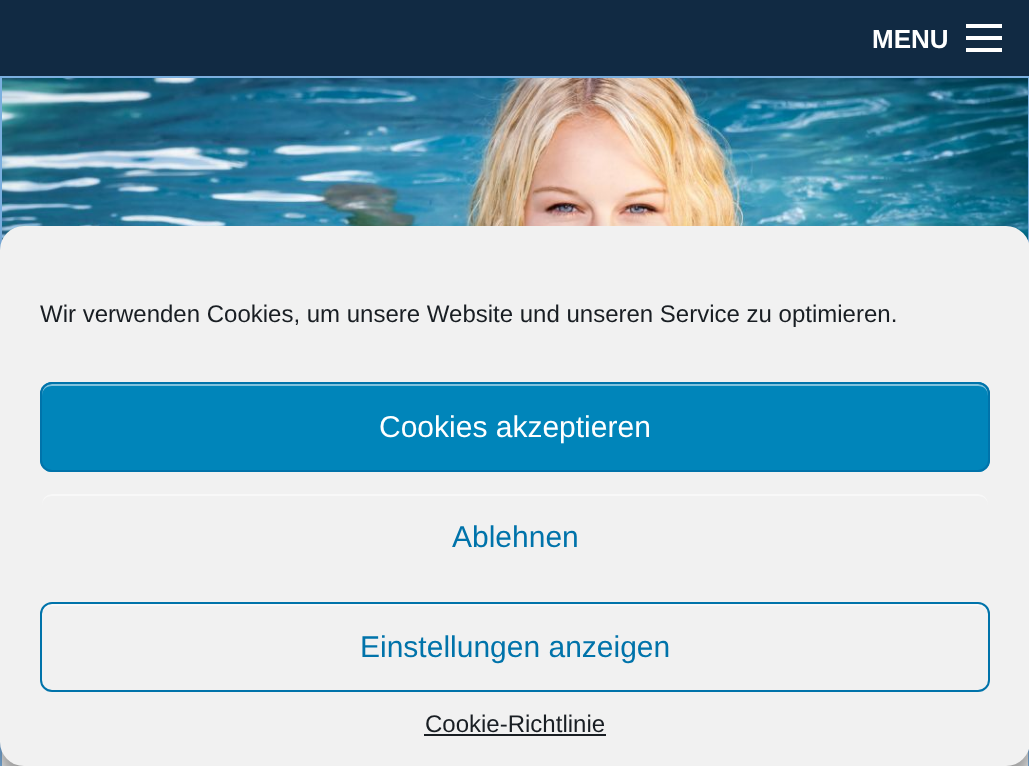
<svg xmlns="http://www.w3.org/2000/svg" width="1029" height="766">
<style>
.a{font:bold 26px Liberation Sans;fill:#fff}
.b{font:24px Liberation Sans;fill:#191e23}
.c{font:30px Liberation Sans;fill:#fff}
.d{font:30px Liberation Sans;fill:#0073aa}
</style>
<rect width="100%" height="100%" fill="#112a43"/>
<path fill="#fff" d="M966 48h36v4H966z"/>
<path fill="#fff" d="M966 36h36v4H966z"/>
<path fill="#fff" d="M966 24h36v4H966z"/>
<path fill="#eee" d="M2 751h1026v15H2z"/>
<path fill="none" stroke="#7bafdf" stroke-width="2" d="M1 77h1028v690H1z"/>
<image href="1.png" x="2" y="78" width="1026" height="163"/>
<rect fill="#0000003b" filter="blur(6px)" y="238" width="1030" height="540" rx="24"/>
<rect fill="#00000030" filter="blur(20px)" y="246" width="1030" height="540" rx="24"/>
<rect fill="#f1f1f1" y="226" width="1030" height="540" rx="24"/>
<rect fill="#0085ba" x="40" y="382" width="950" height="90" rx="12"/>
<path fill="#80c2dd" d="M52 386h926c6 0 10 4 10 10v-2c0-6-4-10-10-10h-926c-6 0-10 4-10 10v2c0-6 4-10 10-10z"/>
<rect fill="none" stroke="#0073aa" stroke-width="2" x="41" y="383" width="948" height="88" rx="11"/>
<path fill="#f8f8f8" d="M52 496h926c6 0 10 4 10 10v-2c0-6-4-10-10-10h-926c-6 0-10 4-10 10v2c0-6 4-10 10-10z"/>
<rect fill="none" stroke="#f1f1f1" stroke-width="2" x="41" y="493" width="948" height="88" rx="11"/>
<path fill="#f8f8f8" d="M52 606h926c6 0 10 4 10 10v-2c0-6-4-10-10-10h-926c-6 0-10 4-10 10v2c0-6 4-10 10-10z"/>
<rect fill="none" stroke="#0073aa" stroke-width="2" x="41" y="603" width="948" height="88" rx="11"/>
<path fill="#191e23" d="M424 734h182v2H424z"/>
<text class="a" x="872" y="48">MENU</text>
<text class="b" x="40" y="322">Wir verwenden Cookies, um unsere Website und unseren Service zu optimieren.</text>
<text class="c" x="379" y="437">Cookies akzeptieren</text>
<text class="d" x="452" y="547">Ablehnen</text>
<text class="d" x="360" y="657">Einstellungen anzeigen</text>
<text class="b" x="425" y="732">Cookie-Richtlinie</text>
</svg>
